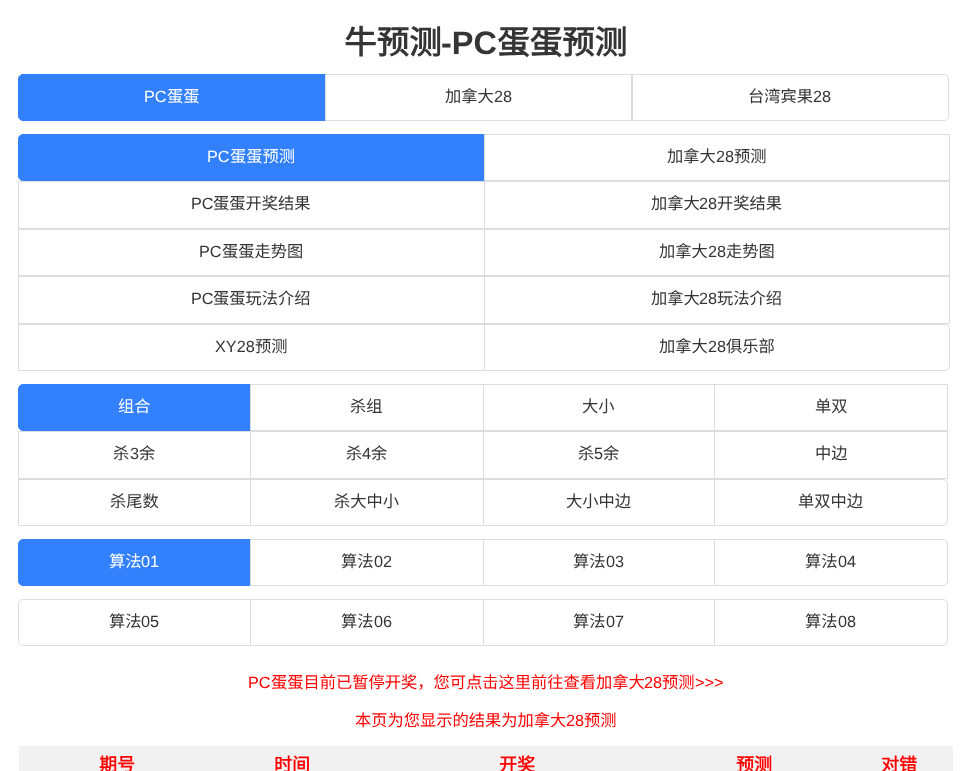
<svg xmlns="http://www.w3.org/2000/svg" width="971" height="771">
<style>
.a{font:bold 32.5px Noto Sans CJK SC;fill:#353535}
.b{font:bold 32.5px Liberation Sans;fill:#353535}
.c{font:16.25px Liberation Sans;fill:#fff}
.d{font:16.25px Noto Sans CJK SC;fill:#fff}
.e{font:16.25px Noto Sans CJK SC;fill:#353535}
.f{font:16.25px Liberation Sans;fill:#353535}
.g{font:16.25px Liberation Sans;fill:#f00}
.h{font:16.25px Noto Sans CJK SC;fill:#f00}
.i{font:bold 18px Noto Sans CJK SC;fill:#f00}
</style>
<rect width="100%" height="100%" fill="#fff"/>
<path fill="#3280fc" stroke="#3280fc" d="M23 74.5h302.5v46h-302.5c-2.5 0-4.5-2-4.5-4.5v-37c0-2.5 2-4.5 4.5-4.5z"/>
<path fill="none" stroke="#ddd" d="M325.5 74.5h307v46H325.5z"/>
<path fill="none" stroke="#ddd" d="M631.5 74.5h312.5c2.5 0 4.5 2 4.5 4.5v37c0 2.5-2 4.5-4.5 4.5h-312.5z"/>
<path fill="#3280fc" stroke="#3280fc" d="M23 134.5h461.5v46h-461.5c-2.5 0-4.5-2-4.5-4.5v-37c0-2.5 2-4.5 4.5-4.5z"/>
<path fill="none" stroke="#ddd" d="M484.5 134.5h465v46H484.5z"/>
<path fill="none" stroke="#ddd" d="M18.5 181.5h466v47H18.5z"/>
<path fill="none" stroke="#ddd" d="M484.5 181.5h465v47H484.5z"/>
<path fill="none" stroke="#ddd" d="M18.5 229.5h466v46H18.5z"/>
<path fill="none" stroke="#ddd" d="M484.5 229.5h465v46H484.5z"/>
<path fill="none" stroke="#ddd" d="M18.5 276.5h466v47H18.5z"/>
<path fill="none" stroke="#ddd" d="M484.5 276.5h465v47H484.5z"/>
<path fill="none" stroke="#ddd" d="M18.5 324.5h466v46H18.5z"/>
<path fill="none" stroke="#ddd" d="M484.5 324.5h460.5c2.5 0 4.5 2 4.5 4.5v37c0 2.5-2 4.5-4.5 4.5h-460.5z"/>
<path fill="#3280fc" stroke="#3280fc" d="M23 384.5h227.5v46h-227.5c-2.5 0-4.5-2-4.5-4.5v-37c0-2.5 2-4.5 4.5-4.5z"/>
<path fill="none" stroke="#ddd" d="M250.5 384.5h233v46H250.5z"/>
<path fill="none" stroke="#ddd" d="M483.5 384.5h231v46H483.5z"/>
<path fill="none" stroke="#ddd" d="M714.5 384.5h233v46H714.5z"/>
<path fill="none" stroke="#ddd" d="M18.5 431.5h232v47H18.5z"/>
<path fill="none" stroke="#ddd" d="M250.5 431.5h233v47H250.5z"/>
<path fill="none" stroke="#ddd" d="M483.5 431.5h231v47H483.5z"/>
<path fill="none" stroke="#ddd" d="M714.5 431.5h233v47H714.5z"/>
<path fill="none" stroke="#ddd" d="M18.5 479.5h232v46H18.5z"/>
<path fill="none" stroke="#ddd" d="M250.5 479.5h233v46H250.5z"/>
<path fill="none" stroke="#ddd" d="M483.5 479.5h231v46H483.5z"/>
<path fill="none" stroke="#ddd" d="M714.5 479.5h228.5c2.5 0 4.5 2 4.5 4.5v37c0 2.5-2 4.5-4.5 4.5h-228.5z"/>
<path fill="#3280fc" stroke="#3280fc" d="M23 539.5h227.5v46h-227.5c-2.5 0-4.5-2-4.5-4.5v-37c0-2.5 2-4.5 4.5-4.5z"/>
<path fill="none" stroke="#ddd" d="M250.5 539.5h233v46H250.5z"/>
<path fill="none" stroke="#ddd" d="M483.5 539.5h231v46H483.5z"/>
<path fill="none" stroke="#ddd" d="M714.5 539.5h228.5c2.5 0 4.5 2 4.5 4.5v37c0 2.5-2 4.5-4.5 4.5h-228.5z"/>
<path fill="none" stroke="#ddd" d="M23 599.5h227.5v46h-227.5c-2.5 0-4.5-2-4.5-4.5v-37c0-2.5 2-4.5 4.5-4.5z"/>
<path fill="none" stroke="#ddd" d="M250.5 599.5h233v46H250.5z"/>
<path fill="none" stroke="#ddd" d="M483.5 599.5h231v46H483.5z"/>
<path fill="none" stroke="#ddd" d="M714.5 599.5h228.5c2.5 0 4.5 2 4.5 4.5v37c0 2.5-2 4.5-4.5 4.5h-228.5z"/>
<path fill="#f1f1f1" d="M19 746h934v25H19z"/>
<text class="a" x="344" y="54">牛预测</text>
<text class="b" x="441" y="54">-PC</text>
<text class="a" x="497" y="54">蛋蛋预测</text>
<text class="c" x="144" y="102">PC</text>
<text class="d" x="167" y="102">蛋蛋</text>
<text class="e" x="445" y="102">加拿大</text>
<text class="f" x="494" y="102">28</text>
<text class="e" x="748" y="102">台湾宾果</text>
<text class="f" x="813" y="102">28</text>
<text class="c" x="207" y="162">PC</text>
<text class="d" x="230" y="162">蛋蛋预测</text>
<text class="e" x="667" y="162">加拿大</text>
<text class="f" x="716" y="162">28</text>
<text class="e" x="734" y="162">预测</text>
<text class="f" x="191" y="209">PC</text>
<text class="e" x="213" y="209">蛋蛋开奖结果</text>
<text class="e" x="651" y="209">加拿大</text>
<text class="f" x="699" y="209">28</text>
<text class="e" x="717" y="209">开奖结果</text>
<text class="f" x="199" y="257">PC</text>
<text class="e" x="222" y="257">蛋蛋走势图</text>
<text class="e" x="659" y="257">加拿大</text>
<text class="f" x="708" y="257">28</text>
<text class="e" x="726" y="257">走势图</text>
<text class="f" x="191" y="304">PC</text>
<text class="e" x="213" y="304">蛋蛋玩法介绍</text>
<text class="e" x="651" y="304">加拿大</text>
<text class="f" x="699" y="304">28</text>
<text class="e" x="717" y="304">玩法介绍</text>
<text class="f" x="215" y="352">XY28</text>
<text class="e" x="255" y="352">预测</text>
<text class="e" x="659" y="352">加拿大</text>
<text class="f" x="708" y="352">28</text>
<text class="e" x="726" y="352">俱乐部</text>
<text class="d" x="118" y="412">组合</text>
<text class="e" x="350" y="412">杀组</text>
<text class="e" x="582" y="412">大小</text>
<text class="e" x="815" y="412">单双</text>
<text class="e" x="113" y="459">杀</text>
<text class="f" x="130" y="459">3</text>
<text class="e" x="139" y="459">余</text>
<text class="e" x="346" y="459">杀</text>
<text class="f" x="362" y="459">4</text>
<text class="e" x="371" y="459">余</text>
<text class="e" x="578" y="459">杀</text>
<text class="f" x="594" y="459">5</text>
<text class="e" x="603" y="459">余</text>
<text class="e" x="815" y="459">中边</text>
<text class="e" x="110" y="507">杀尾数</text>
<text class="e" x="334" y="507">杀大中小</text>
<text class="e" x="566" y="507">大小中边</text>
<text class="e" x="798" y="507">单双中边</text>
<text class="d" x="109" y="567">算法</text>
<text class="c" x="141" y="567">01</text>
<text class="e" x="341" y="567">算法</text>
<text class="f" x="374" y="567">02</text>
<text class="e" x="573" y="567">算法</text>
<text class="f" x="606" y="567">03</text>
<text class="e" x="805" y="567">算法</text>
<text class="f" x="838" y="567">04</text>
<text class="e" x="109" y="627">算法</text>
<text class="f" x="141" y="627">05</text>
<text class="e" x="341" y="627">算法</text>
<text class="f" x="374" y="627">06</text>
<text class="e" x="573" y="627">算法</text>
<text class="f" x="606" y="627">07</text>
<text class="e" x="805" y="627">算法</text>
<text class="f" x="838" y="627">08</text>
<text class="g" x="248" y="688">PC</text>
<text class="h" x="271" y="688">蛋蛋目前已暂停开奖，您可点击这里前往查看加拿大</text>
<text class="g" x="644" y="688">28</text>
<text class="h" x="662" y="688">预测</text>
<text class="g" x="695" y="688">&gt;&gt;&gt;</text>
<text class="h" x="355" y="726">本页为您显示的结果为加拿大</text>
<text class="g" x="566" y="726">28</text>
<text class="h" x="584" y="726">预测</text>
<text class="i" x="99" y="771">期号</text>
<text class="i" x="274" y="771">时间</text>
<text class="i" x="499" y="771">开奖</text>
<text class="i" x="736" y="771">预测</text>
<text class="i" x="881" y="771">对错</text>
</svg>
